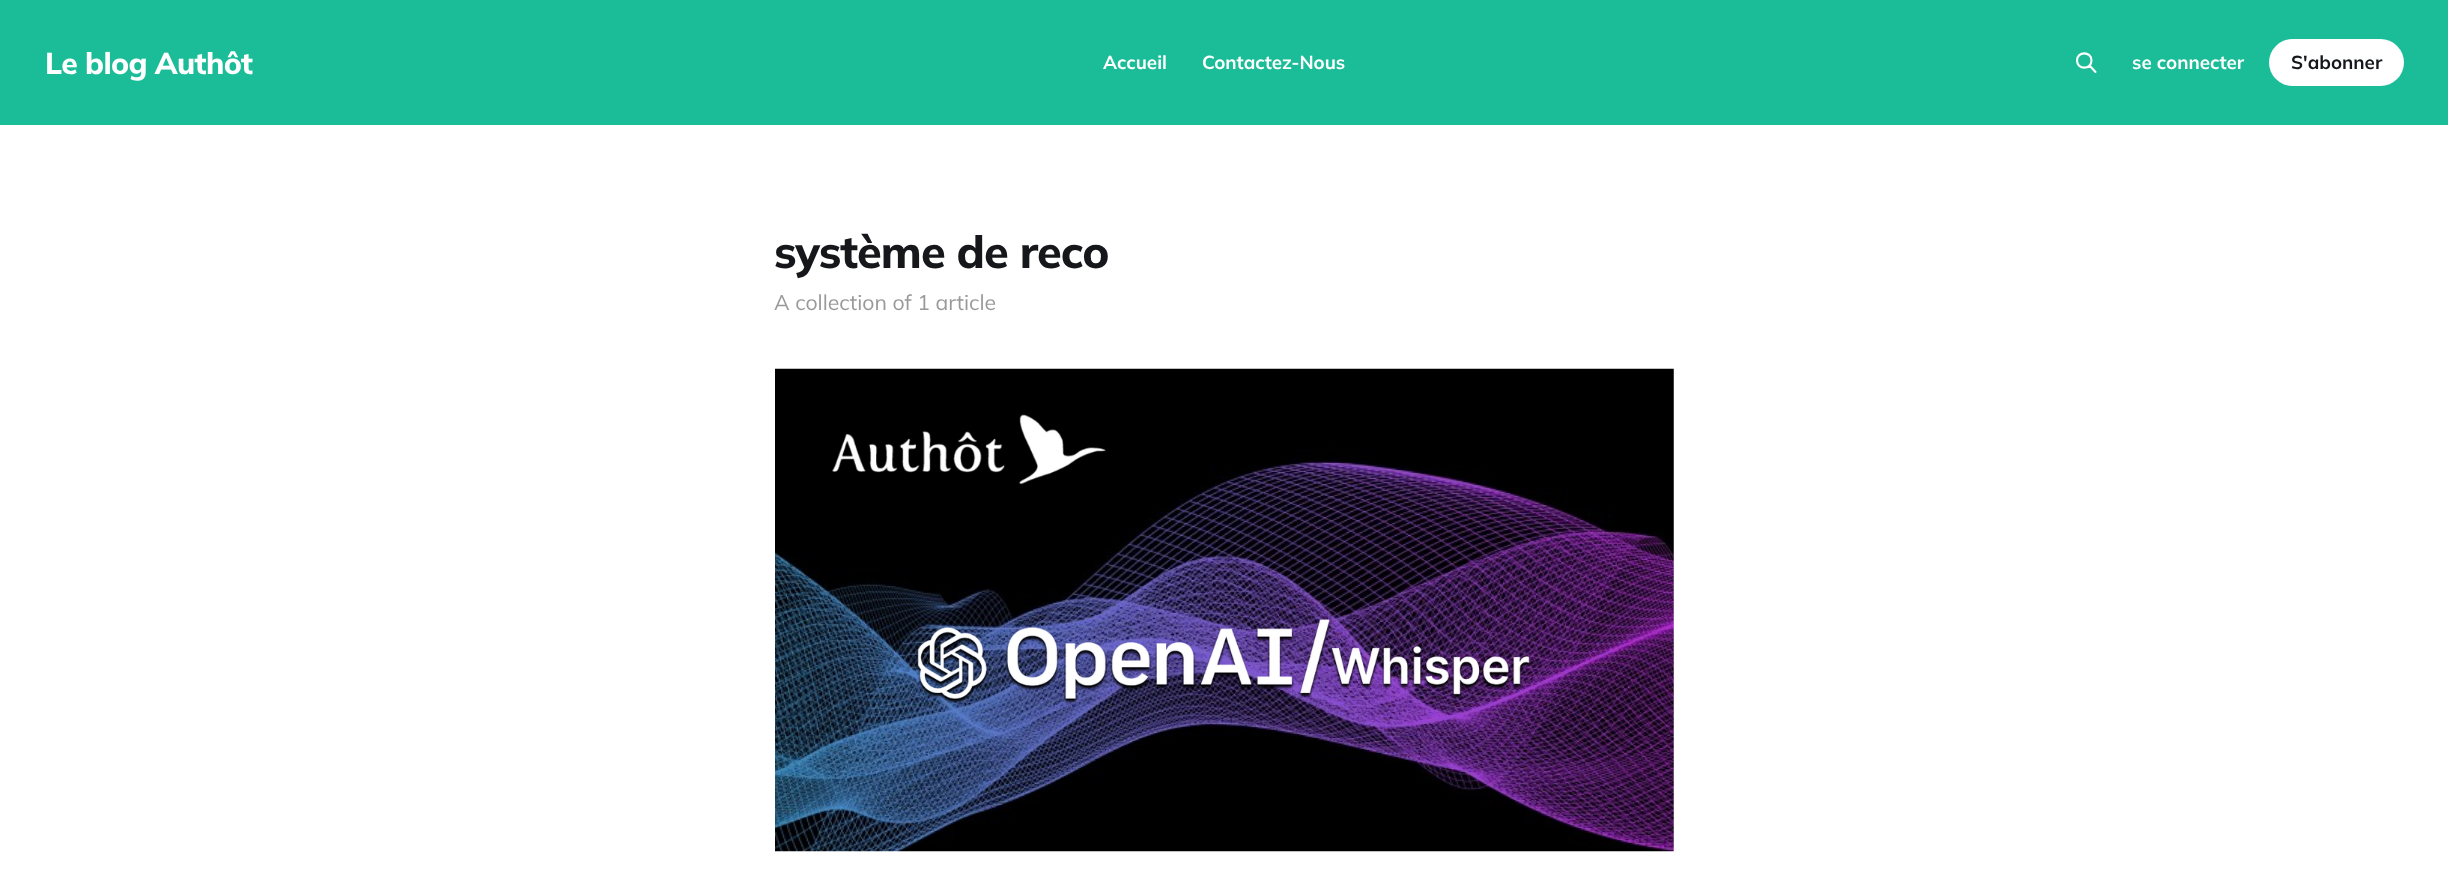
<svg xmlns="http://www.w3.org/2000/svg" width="2448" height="883">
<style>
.a{font:200 30px 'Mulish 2';letter-spacing:-0.6px;fill:#fff}
.b{font:200 18.75px Mulish;fill:#fff}
.c{font:200 18.75px Mulish;fill:#15171a}
.d{font:200 45px 'Mulish 2';letter-spacing:-0.9px;fill:#15171a}
.e{font:200 21.25px 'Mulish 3';fill:#999}
</style>
<rect width="100%" height="100%" fill="#fff"/>
<path fill="#1bbc98" d="M0 0h2448v125H0z"/>
<path fill="none" stroke="#fff" stroke-width="2.1" stroke-linecap="round" stroke-linejoin="round" d="M2095.5 72l-6-6.5m2-5c0 9.5-14.5 9.5-14.5 0c0-9.5 14.5-9.5 14.5 0z"/>
<rect fill="#fff" x="2269" y="39" width="135" height="47" rx="23.5"/>
<image href="1.png" x="775" y="368" width="899" height="484"/>
<text class="a" x="45" y="74">Le blog Authôt</text>
<text class="b" x="1103" y="69">Accueil</text>
<text class="b" x="1202" y="69">Contactez-Nous</text>
<text class="b" x="2132" y="69">se connecter</text>
<text class="c" x="2291" y="69">S'abonner</text>
<text class="d" x="774" y="268">système de reco</text>
<text class="e" x="774" y="310">A collection of 1 article</text>
</svg>
